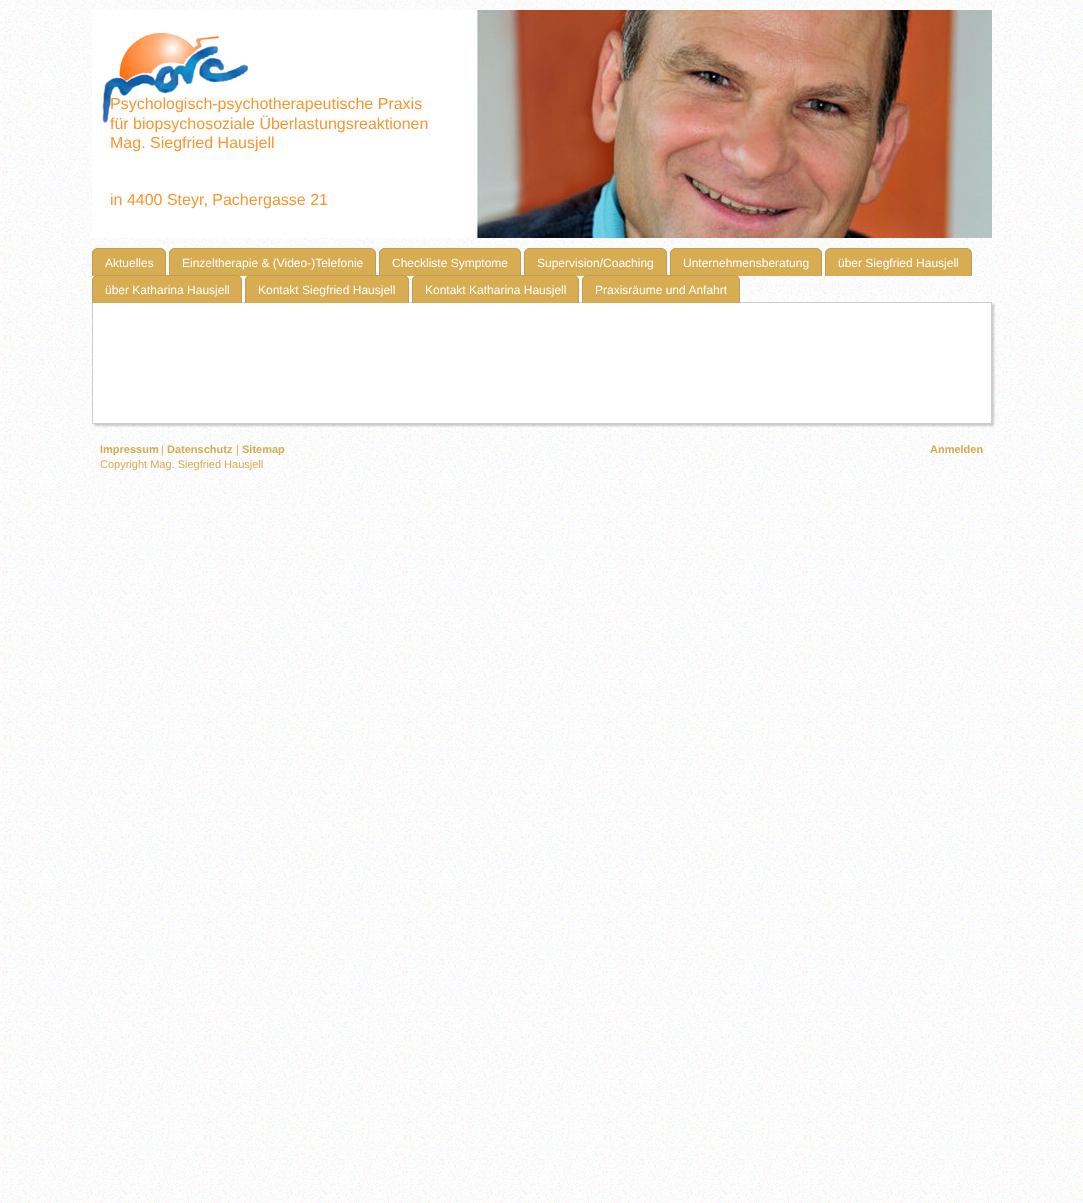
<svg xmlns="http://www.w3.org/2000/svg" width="1083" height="1203">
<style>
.a{font:16px Liberation Sans;fill:#f79730}
.b{font:12px Liberation Sans;fill:#fff}
.c{font:bold 11px Liberation Sans;fill:#d7ac52}
.d{font:11px Liberation Sans;fill:#d7ac52}
</style>
<rect width="100%" height="100%" fill="#fff"/>
<image href="1.png" x="0" y="0" width="1083" height="1203"/>
<image href="2.png" x="92" y="10" width="900" height="228"/>
<image href="3.png" x="101" y="33" width="150" height="92"/>
<path fill="#d7ac52" d="M98 248h62c3.5 0 6 2.5 6 6v22h-74v-22c0-3.5 2.5-6 6-6z"/>
<path fill="#bd9e5b" fill-rule="evenodd" d="M98 248h62c3 0 6 3 6 6v22h-74v-22c0-3 3-6 6-6zm0 1h62c3 0 5 2 5 5v22h-72v-22c0-3 2-5 5-5z"/>
<path fill="#d7ac52" d="M175 248h195c3.5 0 6 2.5 6 6v22h-207v-22c0-3.5 2.5-6 6-6z"/>
<path fill="#bd9e5b" fill-rule="evenodd" d="M175 248h195c3 0 6 3 6 6v22h-207v-22c0-3 3-6 6-6zm0 1h195c3 0 5 2 5 5v22h-205v-22c0-3 2-5 5-5z"/>
<path fill="#d7ac52" d="M385 248h130c3.5 0 6 2.5 6 6v22h-142v-22c0-3.5 2.5-6 6-6z"/>
<path fill="#bd9e5b" fill-rule="evenodd" d="M385 248h130c3 0 6 3 6 6v22h-142v-22c0-3 3-6 6-6zm0 1h130c3 0 5 2 5 5v22h-140v-22c0-3 2-5 5-5z"/>
<path fill="#d7ac52" d="M530 248h131c3.5 0 6 2.5 6 6v22h-143v-22c0-3.5 2.5-6 6-6z"/>
<path fill="#bd9e5b" fill-rule="evenodd" d="M530 248h131c3 0 6 3 6 6v22h-143v-22c0-3 3-6 6-6zm0 1h131c3 0 5 2 5 5v22h-141v-22c0-3 2-5 5-5z"/>
<path fill="#d7ac52" d="M676 248h140c3.5 0 6 2.5 6 6v22h-152v-22c0-3.5 2.5-6 6-6z"/>
<path fill="#bd9e5b" fill-rule="evenodd" d="M676 248h140c3 0 6 3 6 6v22h-152v-22c0-3 3-6 6-6zm0 1h140c3 0 5 2 5 5v22h-150v-22c0-3 2-5 5-5z"/>
<path fill="#d7ac52" d="M831 248h135c3.5 0 6 2.5 6 6v22h-147v-22c0-3.5 2.5-6 6-6z"/>
<path fill="#bd9e5b" fill-rule="evenodd" d="M831 248h135c3 0 6 3 6 6v22h-147v-22c0-3 3-6 6-6zm0 1h135c3 0 5 2 5 5v22h-145v-22c0-3 2-5 5-5z"/>
<path fill="#00000033" filter="blur(1px)" d="M94 304h900v122H94z"/>
<path fill="#fff" stroke="#ccc" d="M92.5 302.5h899v121H92.5z"/>
<path fill="#d7ac52" d="M98 275h138c3.5 0 6 2.5 6 6v22h-150v-22c0-3.5 2.5-6 6-6z"/>
<path fill="#bd9e5b" fill-rule="evenodd" d="M98 275h138c3 0 6 3 6 6v22h-150v-22c0-3 3-6 6-6zm0 1h138c3 0 5 2 5 5v22h-148v-22c0-3 2-5 5-5z"/>
<path fill="#d7ac52" d="M251 275h152c3.5 0 6 2.5 6 6v22h-164v-22c0-3.5 2.5-6 6-6z"/>
<path fill="#bd9e5b" fill-rule="evenodd" d="M251 275h152c3 0 6 3 6 6v22h-164v-22c0-3 3-6 6-6zm0 1h152c3 0 5 2 5 5v22h-162v-22c0-3 2-5 5-5z"/>
<path fill="#d7ac52" d="M418 275h155c3.5 0 6 2.5 6 6v22h-167v-22c0-3.5 2.5-6 6-6z"/>
<path fill="#bd9e5b" fill-rule="evenodd" d="M418 275h155c3 0 6 3 6 6v22h-167v-22c0-3 3-6 6-6zm0 1h155c3 0 5 2 5 5v22h-165v-22c0-3 2-5 5-5z"/>
<path fill="#d7ac52" d="M588 275h146c3.5 0 6 2.5 6 6v22h-158v-22c0-3.5 2.5-6 6-6z"/>
<path fill="#bd9e5b" fill-rule="evenodd" d="M588 275h146c3 0 6 3 6 6v22h-158v-22c0-3 3-6 6-6zm0 1h146c3 0 5 2 5 5v22h-156v-22c0-3 2-5 5-5z"/>
<text class="a" x="110" y="109">Psychologisch-psychotherapeutische Praxis</text>
<text class="a" x="110" y="129">für biopsychosoziale Überlastungsreaktionen</text>
<text class="a" x="110" y="148">Mag. Siegfried Hausjell</text>
<text class="a" x="110" y="205">in 4400 Steyr, Pachergasse 21</text>
<text class="b" x="105" y="267">Aktuelles</text>
<text class="b" x="182" y="267">Einzeltherapie &amp; (Video-)Telefonie</text>
<text class="b" x="392" y="267">Checkliste Symptome</text>
<text class="b" x="537" y="267">Supervision/Coaching</text>
<text class="b" x="683" y="267">Unternehmensberatung</text>
<text class="b" x="838" y="267">über Siegfried Hausjell</text>
<text class="b" x="105" y="294">über Katharina Hausjell</text>
<text class="b" x="258" y="294">Kontakt Siegfried Hausjell</text>
<text class="b" x="425" y="294">Kontakt Katharina Hausjell</text>
<text class="b" x="595" y="294">Praxisräume und Anfahrt</text>
<text class="c" x="100" y="453">Impressum</text>
<text class="d" x="161" y="453">|</text>
<text class="c" x="167" y="453">Datenschutz</text>
<text class="d" x="236" y="453">|</text>
<text class="c" x="242" y="453">Sitemap</text>
<text class="d" x="100" y="468">Copyright Mag. Siegfried Hausjell</text>
<text class="c" x="930" y="453">Anmelden</text>
</svg>
